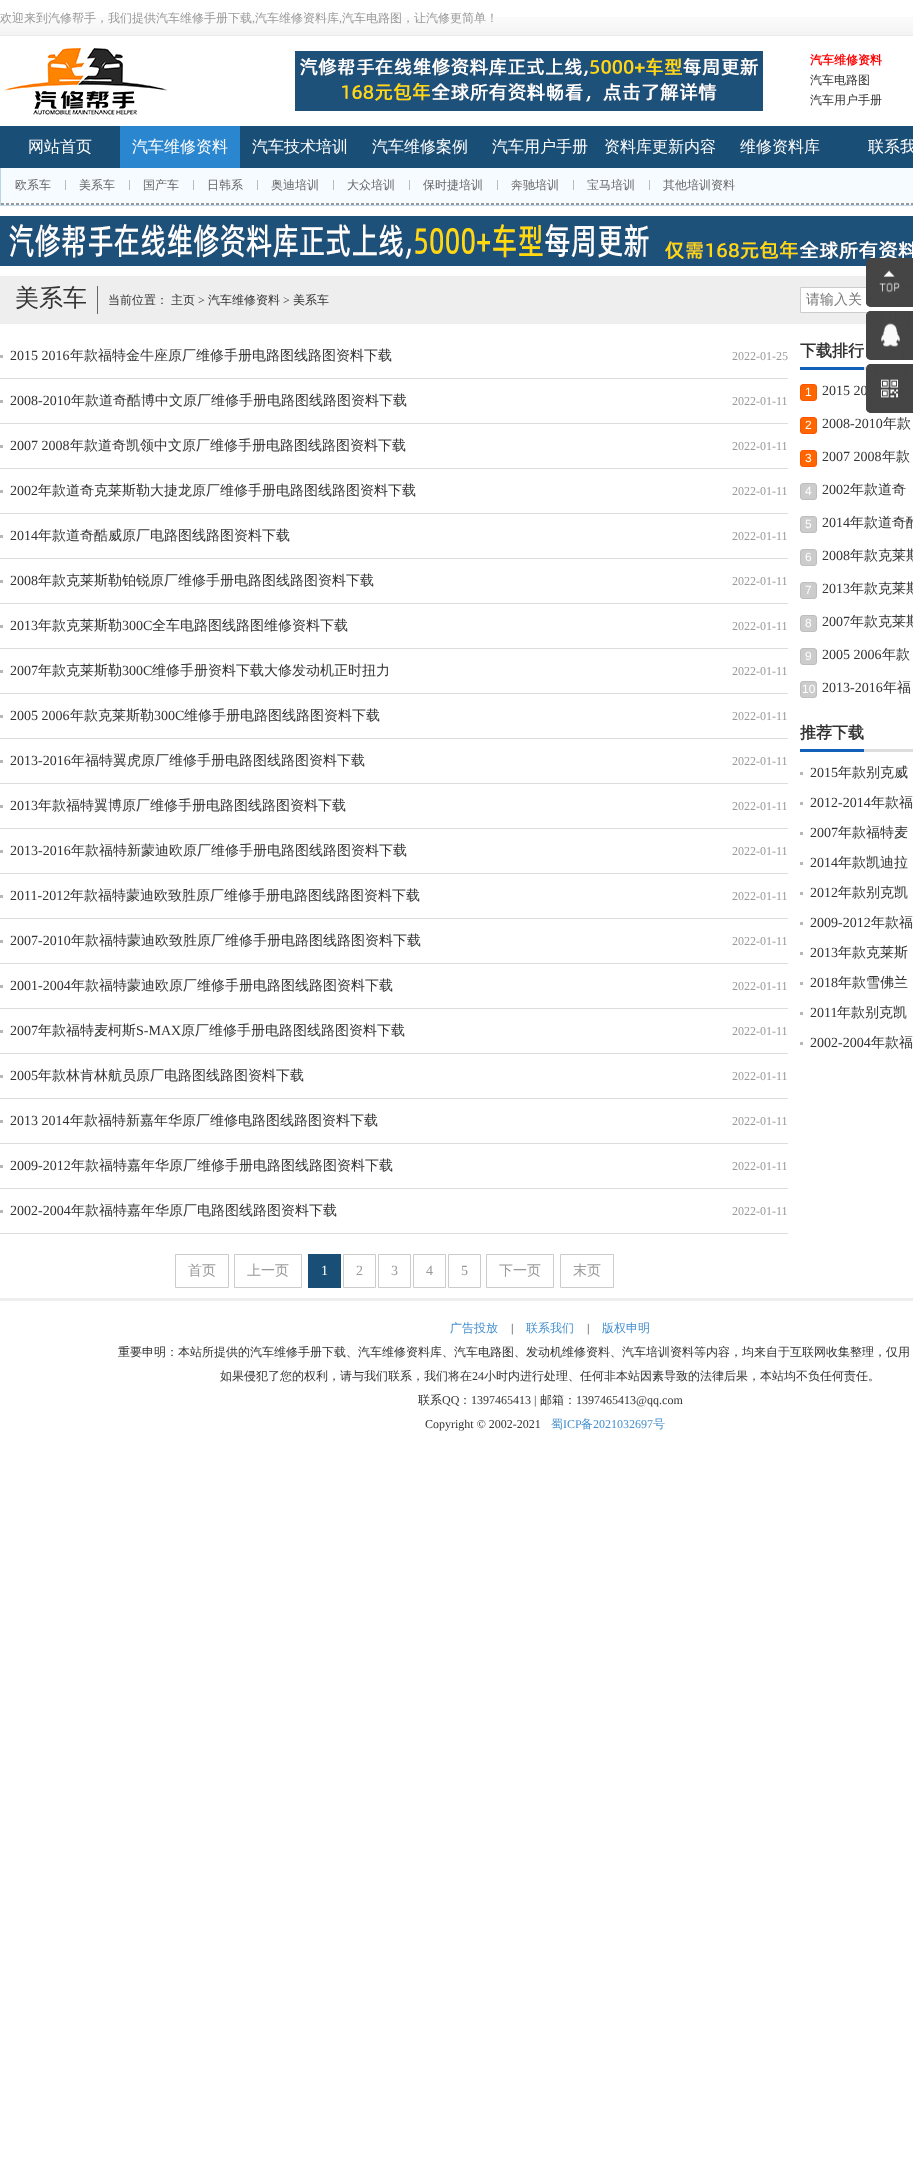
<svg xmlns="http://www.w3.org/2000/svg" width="913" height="2171">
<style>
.a{font:500 12px WenQuanYi Zen Hei;fill:#999}
.b{font:12px Liberation Serif;fill:#999}
.c{font:bold 12px WenQuanYi Zen Hei;fill:#f00}
.d{font:500 12px WenQuanYi Zen Hei;fill:#333}
.e{font:500 16px WenQuanYi Zen Hei;fill:#fff}
.f{font:500 12px WenQuanYi Zen Hei;fill:#666}
.g{font:500 24px WenQuanYi Zen Hei;fill:#333}
.h{font:12px Liberation Serif;fill:#333}
.i{font:500 14px WenQuanYi Zen Hei;fill:#777}
.j{font:14px Liberation Serif;fill:#333}
.k{font:500 14px WenQuanYi Zen Hei;fill:#333}
.l{font:500 14px WenQuanYi Zen Hei;fill:#999}
.m{font:14px Liberation Serif;fill:#fff}
.n{font:14px Liberation Serif;fill:#999}
.o{font:bold 16px WenQuanYi Zen Hei;fill:#333}
.p{font:12px Liberation Sans;fill:#fff}
.q{font:500 12px WenQuanYi Zen Hei;fill:#458fce}
.r{font:12px Liberation Serif;fill:#458fce}
</style>
<rect width="100%" height="100%" fill="#fff"/>
<image href="1.png" x="0" y="17" width="913" height="19"/>
<image href="2.png" x="3" y="47" width="165" height="68"/>
<image href="3.png" x="295" y="51" width="468" height="60"/>
<path fill="#194e77" d="M0 126h913v42H0z"/>
<path fill="#2986cf" d="M120 126h120v42H120z"/>
<path fill="#f6fbff" d="M1 168h912v37H1z"/>
<path fill="#bcd5e5" d="M0 205h913v1H0z"/>
<path fill="#bcd5e5" d="M0 168h1v38H0z"/>
<path fill="#bbb" d="M65 180h1v10H65z"/>
<path fill="#bbb" d="M129 180h1v10H129z"/>
<path fill="#bbb" d="M193 180h1v10H193z"/>
<path fill="#bbb" d="M257 180h1v10H257z"/>
<path fill="#bbb" d="M333 180h1v10H333z"/>
<path fill="#bbb" d="M409 180h1v10H409z"/>
<path fill="#bbb" d="M497 180h1v10H497z"/>
<path fill="#bbb" d="M573 180h1v10H573z"/>
<path fill="#bbb" d="M649 180h1v10H649z"/>
<path fill="none" stroke="#999" stroke-dasharray="3 2" d="M1 203.5h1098"/>
<path fill="none" stroke="#999" stroke-dasharray="3 2" d="M1 204.5h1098"/>
<image href="4.png" x="0" y="216" width="913" height="50"/>
<path fill="#eee" d="M0 276h867v48H0z"/>
<path fill="#666" d="M97 286h1v28H97z"/>
<path fill="#fff" d="M801 288h66v24H801z"/>
<path fill="none" stroke="#ccc" d="M800.5 287.5h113v25H800.5z"/>
<image href="5.png" x="866" y="258" width="47" height="49"/>
<image href="6.png" x="866" y="311" width="47" height="49"/>
<image href="8.png" x="866" y="258" width="5" height="49"/>
<image href="9.png" x="866" y="311" width="5" height="49"/>
<path fill="#b7b7b7" d="M0 355h3v3H0z"/>
<path fill="#ddd" d="M0 378h788v1H0z"/>
<path fill="#b7b7b7" d="M0 400h3v3H0z"/>
<path fill="#ddd" d="M0 423h788v1H0z"/>
<path fill="#b7b7b7" d="M0 445h3v3H0z"/>
<path fill="#ddd" d="M0 468h788v1H0z"/>
<path fill="#b7b7b7" d="M0 490h3v3H0z"/>
<path fill="#ddd" d="M0 513h788v1H0z"/>
<path fill="#b7b7b7" d="M0 535h3v3H0z"/>
<path fill="#ddd" d="M0 558h788v1H0z"/>
<path fill="#b7b7b7" d="M0 580h3v3H0z"/>
<path fill="#ddd" d="M0 603h788v1H0z"/>
<path fill="#b7b7b7" d="M0 625h3v3H0z"/>
<path fill="#ddd" d="M0 648h788v1H0z"/>
<path fill="#b7b7b7" d="M0 670h3v3H0z"/>
<path fill="#ddd" d="M0 693h788v1H0z"/>
<path fill="#b7b7b7" d="M0 715h3v3H0z"/>
<path fill="#ddd" d="M0 738h788v1H0z"/>
<path fill="#b7b7b7" d="M0 760h3v3H0z"/>
<path fill="#ddd" d="M0 783h788v1H0z"/>
<path fill="#b7b7b7" d="M0 805h3v3H0z"/>
<path fill="#ddd" d="M0 828h788v1H0z"/>
<path fill="#b7b7b7" d="M0 850h3v3H0z"/>
<path fill="#ddd" d="M0 873h788v1H0z"/>
<path fill="#b7b7b7" d="M0 895h3v3H0z"/>
<path fill="#ddd" d="M0 918h788v1H0z"/>
<path fill="#b7b7b7" d="M0 940h3v3H0z"/>
<path fill="#ddd" d="M0 963h788v1H0z"/>
<path fill="#b7b7b7" d="M0 985h3v3H0z"/>
<path fill="#ddd" d="M0 1008h788v1H0z"/>
<path fill="#b7b7b7" d="M0 1030h3v3H0z"/>
<path fill="#ddd" d="M0 1053h788v1H0z"/>
<path fill="#b7b7b7" d="M0 1075h3v3H0z"/>
<path fill="#ddd" d="M0 1098h788v1H0z"/>
<path fill="#b7b7b7" d="M0 1120h3v3H0z"/>
<path fill="#ddd" d="M0 1143h788v1H0z"/>
<path fill="#b7b7b7" d="M0 1165h3v3H0z"/>
<path fill="#ddd" d="M0 1188h788v1H0z"/>
<path fill="#b7b7b7" d="M0 1210h3v3H0z"/>
<path fill="#ddd" d="M0 1233h788v1H0z"/>
<path fill="none" stroke="#ccc" d="M175.5 1254.5h53v33H175.5z"/>
<path fill="none" stroke="#ccc" d="M234.5 1254.5h67v33H234.5z"/>
<path fill="#194e77" d="M308 1254h33v34H308z"/>
<path fill="none" stroke="#ccc" d="M343.5 1254.5h32v33H343.5z"/>
<path fill="none" stroke="#ccc" d="M378.5 1254.5h32v33H378.5z"/>
<path fill="none" stroke="#ccc" d="M413.5 1254.5h32v33H413.5z"/>
<path fill="none" stroke="#ccc" d="M448.5 1254.5h32v33H448.5z"/>
<path fill="none" stroke="#ccc" d="M486.5 1254.5h67v33H486.5z"/>
<path fill="none" stroke="#ccc" d="M560.5 1254.5h53v33H560.5z"/>
<path fill="#1161ba" d="M800 367h64v3H800z"/>
<rect fill="#f60" stroke="#ff5400" x="800.5" y="384.5" width="16" height="16" rx="2.5"/>
<rect fill="#f60" stroke="#ff5400" x="800.5" y="417.5" width="16" height="16" rx="2.5"/>
<rect fill="#f60" stroke="#ff5400" x="800.5" y="450.5" width="16" height="16" rx="2.5"/>
<rect fill="#ccc" stroke="#bebebe" x="800.5" y="483.5" width="16" height="16" rx="2.5"/>
<rect fill="#ccc" stroke="#bebebe" x="800.5" y="516.5" width="16" height="16" rx="2.5"/>
<rect fill="#ccc" stroke="#bebebe" x="800.5" y="549.5" width="16" height="16" rx="2.5"/>
<rect fill="#ccc" stroke="#bebebe" x="800.5" y="582.5" width="16" height="16" rx="2.5"/>
<rect fill="#ccc" stroke="#bebebe" x="800.5" y="615.5" width="16" height="16" rx="2.5"/>
<rect fill="#ccc" stroke="#bebebe" x="800.5" y="648.5" width="16" height="16" rx="2.5"/>
<rect fill="#ccc" stroke="#bebebe" x="800.5" y="681.5" width="16" height="16" rx="2.5"/>
<path fill="#ddd" d="M864 749h49v3H864z"/>
<path fill="#1161ba" d="M800 749h64v3H800z"/>
<path fill="#b7b7b7" d="M800 772h3v3H800z"/>
<path fill="#b7b7b7" d="M800 802h3v3H800z"/>
<path fill="#b7b7b7" d="M800 832h3v3H800z"/>
<path fill="#b7b7b7" d="M800 862h3v3H800z"/>
<path fill="#b7b7b7" d="M800 892h3v3H800z"/>
<path fill="#b7b7b7" d="M800 922h3v3H800z"/>
<path fill="#b7b7b7" d="M800 952h3v3H800z"/>
<path fill="#b7b7b7" d="M800 982h3v3H800z"/>
<path fill="#b7b7b7" d="M800 1012h3v3H800z"/>
<path fill="#b7b7b7" d="M800 1042h3v3H800z"/>
<path fill="#eee" d="M0 1298h913v3H0z"/>
<text class="a" x="0" y="22">欢迎来到汽修帮手，我们提供汽车维修手册下载</text>
<text class="b" x="252" y="22">,</text>
<text class="a" x="255" y="22">汽车维修资料库</text>
<text class="b" x="339" y="22">,</text>
<text class="a" x="342" y="22">汽车电路图，让汽修更简单！</text>
<text class="c" x="810" y="64">汽车维修资料</text>
<text class="d" x="810" y="84">汽车电路图</text>
<text class="d" x="810" y="104">汽车用户手册</text>
<text class="e" x="28" y="152">网站首页</text>
<text class="e" x="132" y="152">汽车维修资料</text>
<text class="e" x="252" y="152">汽车技术培训</text>
<text class="e" x="372" y="152">汽车维修案例</text>
<text class="e" x="492" y="152">汽车用户手册</text>
<text class="e" x="604" y="152">资料库更新内容</text>
<text class="e" x="740" y="152">维修资料库</text>
<text class="e" x="868" y="152">联系我</text>
<text class="f" x="15" y="189">欧系车</text>
<text class="f" x="79" y="189">美系车</text>
<text class="f" x="143" y="189">国产车</text>
<text class="f" x="207" y="189">日韩系</text>
<text class="f" x="271" y="189">奥迪培训</text>
<text class="f" x="347" y="189">大众培训</text>
<text class="f" x="423" y="189">保时捷培训</text>
<text class="f" x="511" y="189">奔驰培训</text>
<text class="f" x="587" y="189">宝马培训</text>
<text class="f" x="663" y="189">其他培训资料</text>
<text class="g" x="15" y="306">美系车</text>
<text class="d" x="108" y="304">当前位置：</text>
<text class="d" x="171" y="304">主页</text>
<text class="h" x="198" y="304">&gt;</text>
<text class="d" x="208" y="304">汽车维修资料</text>
<text class="h" x="283" y="304">&gt;</text>
<text class="d" x="293" y="304">美系车</text>
<text class="i" x="806" y="304">请输入关</text>
<text class="j" x="10" y="360">2015 2016</text>
<text class="k" x="70" y="360">年款福特金牛座原厂维修手册电路图线路图资料下载</text>
<text class="b" x="732" y="360">2022-01-25</text>
<text class="j" x="10" y="405">2008-2010</text>
<text class="k" x="71" y="405">年款道奇酷博中文原厂维修手册电路图线路图资料下载</text>
<text class="b" x="732" y="405">2022-01-11</text>
<text class="j" x="10" y="450">2007 2008</text>
<text class="k" x="70" y="450">年款道奇凯领中文原厂维修手册电路图线路图资料下载</text>
<text class="b" x="732" y="450">2022-01-11</text>
<text class="j" x="10" y="495">2002</text>
<text class="k" x="38" y="495">年款道奇克莱斯勒大捷龙原厂维修手册电路图线路图资料下载</text>
<text class="b" x="732" y="495">2022-01-11</text>
<text class="j" x="10" y="540">2014</text>
<text class="k" x="38" y="540">年款道奇酷威原厂电路图线路图资料下载</text>
<text class="b" x="732" y="540">2022-01-11</text>
<text class="j" x="10" y="585">2008</text>
<text class="k" x="38" y="585">年款克莱斯勒铂锐原厂维修手册电路图线路图资料下载</text>
<text class="b" x="732" y="585">2022-01-11</text>
<text class="j" x="10" y="630">2013</text>
<text class="k" x="38" y="630">年款克莱斯勒</text>
<text class="j" x="122" y="630">300C</text>
<text class="k" x="152" y="630">全车电路图线路图维修资料下载</text>
<text class="b" x="732" y="630">2022-01-11</text>
<text class="j" x="10" y="675">2007</text>
<text class="k" x="38" y="675">年款克莱斯勒</text>
<text class="j" x="122" y="675">300C</text>
<text class="k" x="152" y="675">维修手册资料下载大修发动机正时扭力</text>
<text class="b" x="732" y="675">2022-01-11</text>
<text class="j" x="10" y="720">2005 2006</text>
<text class="k" x="70" y="720">年款克莱斯勒</text>
<text class="j" x="154" y="720">300C</text>
<text class="k" x="184" y="720">维修手册电路图线路图资料下载</text>
<text class="b" x="732" y="720">2022-01-11</text>
<text class="j" x="10" y="765">2013-2016</text>
<text class="k" x="71" y="765">年福特翼虎原厂维修手册电路图线路图资料下载</text>
<text class="b" x="732" y="765">2022-01-11</text>
<text class="j" x="10" y="810">2013</text>
<text class="k" x="38" y="810">年款福特翼博原厂维修手册电路图线路图资料下载</text>
<text class="b" x="732" y="810">2022-01-11</text>
<text class="j" x="10" y="855">2013-2016</text>
<text class="k" x="71" y="855">年款福特新蒙迪欧原厂维修手册电路图线路图资料下载</text>
<text class="b" x="732" y="855">2022-01-11</text>
<text class="j" x="10" y="900">2011-2012</text>
<text class="k" x="70" y="900">年款福特蒙迪欧致胜原厂维修手册电路图线路图资料下载</text>
<text class="b" x="732" y="900">2022-01-11</text>
<text class="j" x="10" y="945">2007-2010</text>
<text class="k" x="71" y="945">年款福特蒙迪欧致胜原厂维修手册电路图线路图资料下载</text>
<text class="b" x="732" y="945">2022-01-11</text>
<text class="j" x="10" y="990">2001-2004</text>
<text class="k" x="71" y="990">年款福特蒙迪欧原厂维修手册电路图线路图资料下载</text>
<text class="b" x="732" y="990">2022-01-11</text>
<text class="j" x="10" y="1035">2007</text>
<text class="k" x="38" y="1035">年款福特麦柯斯</text>
<text class="j" x="136" y="1035">S-MAX</text>
<text class="k" x="181" y="1035">原厂维修手册电路图线路图资料下载</text>
<text class="b" x="732" y="1035">2022-01-11</text>
<text class="j" x="10" y="1080">2005</text>
<text class="k" x="38" y="1080">年款林肯林航员原厂电路图线路图资料下载</text>
<text class="b" x="732" y="1080">2022-01-11</text>
<text class="j" x="10" y="1125">2013 2014</text>
<text class="k" x="70" y="1125">年款福特新嘉年华原厂维修电路图线路图资料下载</text>
<text class="b" x="732" y="1125">2022-01-11</text>
<text class="j" x="10" y="1170">2009-2012</text>
<text class="k" x="71" y="1170">年款福特嘉年华原厂维修手册电路图线路图资料下载</text>
<text class="b" x="732" y="1170">2022-01-11</text>
<text class="j" x="10" y="1215">2002-2004</text>
<text class="k" x="71" y="1215">年款福特嘉年华原厂电路图线路图资料下载</text>
<text class="b" x="732" y="1215">2022-01-11</text>
<text class="l" x="188" y="1275">首页</text>
<text class="l" x="247" y="1275">上一页</text>
<text class="m" x="321" y="1275">1</text>
<text class="n" x="356" y="1275">2</text>
<text class="n" x="391" y="1275">3</text>
<text class="n" x="426" y="1275">4</text>
<text class="n" x="461" y="1275">5</text>
<text class="l" x="499" y="1275">下一页</text>
<text class="l" x="573" y="1275">末页</text>
<text class="o" x="800" y="356">下载排行</text>
<text class="p" x="805" y="396">1</text>
<text class="j" x="822" y="395">2015 20</text>
<image href="7.png" x="866" y="364" width="5" height="49"/>
<path fill="#ddd" d="M864 367h3v3H864z"/>
<image href="10.png" x="866" y="364" width="47" height="49"/>
<text class="p" x="805" y="429">2</text>
<text class="j" x="822" y="428">2008-2010</text>
<text class="k" x="883" y="428">年款</text>
<text class="p" x="805" y="462">3</text>
<text class="j" x="822" y="461">2007 2008</text>
<text class="k" x="882" y="461">年款</text>
<text class="p" x="805" y="495">4</text>
<text class="j" x="822" y="494">2002</text>
<text class="k" x="850" y="494">年款道奇</text>
<text class="p" x="805" y="528">5</text>
<text class="j" x="822" y="527">2014</text>
<text class="k" x="850" y="527">年款道奇酷</text>
<text class="p" x="805" y="561">6</text>
<text class="j" x="822" y="560">2008</text>
<text class="k" x="850" y="560">年款克莱斯</text>
<text class="p" x="805" y="594">7</text>
<text class="j" x="822" y="593">2013</text>
<text class="k" x="850" y="593">年款克莱斯</text>
<text class="p" x="805" y="627">8</text>
<text class="j" x="822" y="626">2007</text>
<text class="k" x="850" y="626">年款克莱斯</text>
<text class="p" x="805" y="660">9</text>
<text class="j" x="822" y="659">2005 2006</text>
<text class="k" x="882" y="659">年款</text>
<text class="p" x="802" y="693">10</text>
<text class="j" x="822" y="692">2013-2016</text>
<text class="k" x="883" y="692">年福</text>
<text class="o" x="800" y="738">推荐下载</text>
<text class="j" x="810" y="777">2015</text>
<text class="k" x="838" y="777">年款别克威</text>
<text class="j" x="810" y="807">2012-2014</text>
<text class="k" x="871" y="807">年款福</text>
<text class="j" x="810" y="837">2007</text>
<text class="k" x="838" y="837">年款福特麦</text>
<text class="j" x="810" y="867">2014</text>
<text class="k" x="838" y="867">年款凯迪拉</text>
<text class="j" x="810" y="897">2012</text>
<text class="k" x="838" y="897">年款别克凯</text>
<text class="j" x="810" y="927">2009-2012</text>
<text class="k" x="871" y="927">年款福</text>
<text class="j" x="810" y="957">2013</text>
<text class="k" x="838" y="957">年款克莱斯</text>
<text class="j" x="810" y="987">2018</text>
<text class="k" x="838" y="987">年款雪佛兰</text>
<text class="j" x="810" y="1017">2011</text>
<text class="k" x="837" y="1017">年款别克凯</text>
<text class="j" x="810" y="1047">2002-2004</text>
<text class="k" x="871" y="1047">年款福</text>
<text class="q" x="450" y="1332">广告投放</text>
<text class="h" x="511" y="1332">|</text>
<text class="q" x="526" y="1332">联系我们</text>
<text class="h" x="587" y="1332">|</text>
<text class="q" x="602" y="1332">版权申明</text>
<text class="d" x="118" y="1356">重要申明：本站所提供的汽车维修手册下载、汽车维修资料库、汽车电路图、发动机维修资料、汽车培训资料等内容，均来自于互联网收集整理，仅用</text>
<text class="d" x="220" y="1380">如果侵犯了您的权利，请与我们联系，我们将在</text>
<text class="h" x="472" y="1380">24</text>
<text class="d" x="484" y="1380">小时内进行处理、任何非本站因素导致的法律后果，本站均不负任何责任。</text>
<text class="d" x="418" y="1404">联系</text>
<text class="h" x="442" y="1404">QQ</text>
<text class="d" x="459" y="1404">：</text>
<text class="h" x="471" y="1404">1397465413 |</text>
<text class="d" x="540" y="1404">邮箱：</text>
<text class="h" x="576" y="1404">1397465413@qq.com</text>
<text class="h" x="425" y="1428">Copyright © 2002-2021</text>
<text class="q" x="551" y="1428">蜀</text>
<text class="r" x="563" y="1428">ICP</text>
<text class="q" x="581" y="1428">备</text>
<text class="r" x="593" y="1428">2021032697</text>
<text class="q" x="653" y="1428">号</text>
</svg>
